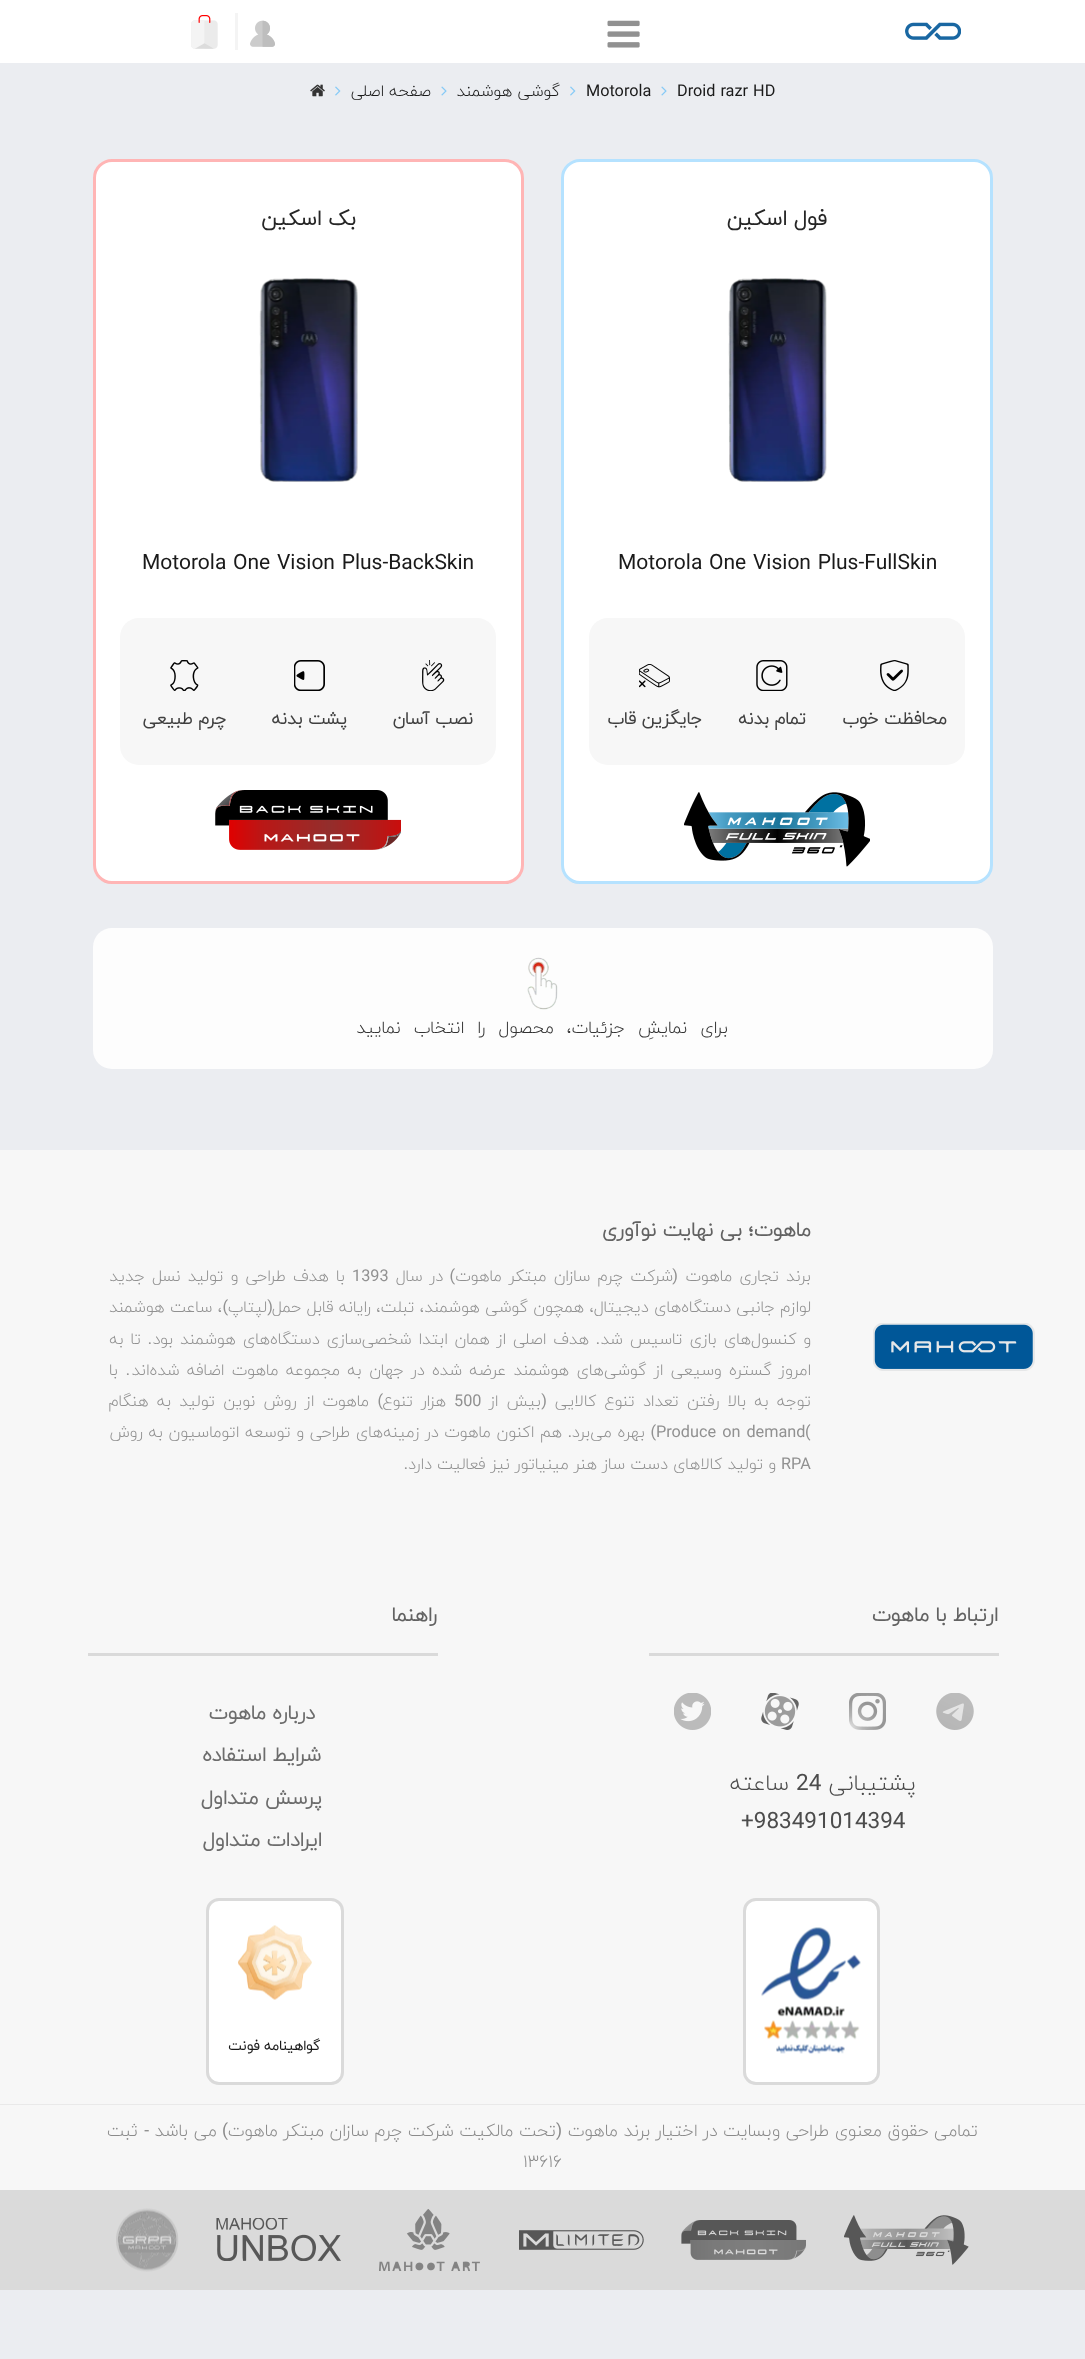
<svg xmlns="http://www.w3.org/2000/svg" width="1085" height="2359">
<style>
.a{font:16.25px Roboto;fill:#1a1a1a}
.b{font:300 16.25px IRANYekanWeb;direction:rtl;fill:#1a1a1a}
.c{font:bold 21.25px IRANYekanWeb;direction:rtl;fill:#262626}
.d{font:21px Roboto;fill:#1a1a1a}
.e{font:bold 17.5px IRANYekanWeb;direction:rtl;fill:#404040}
.f{font:300 17.5px IRANYekanWeb;direction:rtl;fill:#333}
.g{font:bold 20px IRANYekanWeb;direction:rtl;fill:#626262}
.h{font:300 16.25px IRANYekanWeb;direction:rtl;fill:#919191}
.i{font:16.25px Roboto;direction:rtl;fill:#919191}
.j{font:16.25px Roboto;fill:#919191}
.k{font:300 22.5px IRANYekanWeb;direction:rtl;fill:#4c4c4c}
.l{font:22.5px Roboto;fill:#4c4c4c}
.m{font:bold 20px IRANYekanWeb;direction:rtl;fill:#6c6c6c}
.n{font:bold 13.75px IRANYekanWeb;direction:rtl;fill:#1a1a1a}
.o{font:300 17.5px IRANYekanWeb;direction:rtl;fill:#8b8b8b}
.p{font:17.5px Roboto;direction:rtl;fill:#8b8b8b}
.q{font:300 17.5px IRANYekanWeb;fill:#8b8b8b}
</style>
<rect width="100%" height="100%" fill="#ebedf1"/>
<path fill="#fff" d="M0 0h1085v63H0z"/>
<image href="1.png" x="905" y="22" width="56" height="18"/>
<image href="2.png" x="607" y="20" width="33" height="28"/>
<image href="3.png" x="250" y="20" width="25" height="27"/>
<path fill="#f4f4f4" d="M235 13h3v37H235z"/>
<image href="4.png" x="191" y="15" width="27" height="34"/>
<image href="5.png" x="661" y="86" width="6" height="10"/>
<image href="6.png" x="570" y="86" width="6" height="10"/>
<image href="5.png" x="441" y="86" width="6" height="10"/>
<image href="6.png" x="335" y="86" width="6" height="10"/>
<image href="7.png" x="310" y="84" width="15" height="13"/>
<rect fill="#fff" x="561" y="159" width="432" height="725" rx="19"/>
<rect fill="none" stroke="#009aff4a" stroke-width="3" x="562.5" y="160.5" width="429" height="722" rx="17.5"/>
<image href="8.png" x="728" y="278" width="99" height="204"/>
<rect fill="#f7f7f7" x="589" y="618" width="376" height="147" rx="19"/>
<image href="9.png" x="880" y="660" width="29" height="31"/>
<image href="10.png" x="756" y="660" width="32" height="31"/>
<image href="11.png" x="639" y="664" width="31" height="24"/>
<image href="12.png" x="684" y="792" width="186" height="75"/>
<rect fill="#fff" x="93" y="159" width="431" height="725" rx="19"/>
<rect fill="none" stroke="#ff00004a" stroke-width="3" x="94.5" y="160.5" width="428" height="722" rx="17.5"/>
<image href="13.png" x="259" y="278" width="99" height="204"/>
<rect fill="#f7f7f7" x="120" y="618" width="376" height="147" rx="19"/>
<image href="14.png" x="422" y="660" width="23" height="31"/>
<image href="15.png" x="294" y="660" width="31" height="31"/>
<image href="16.png" x="170" y="660" width="29" height="31"/>
<image href="17.png" x="215" y="790" width="186" height="60"/>
<rect fill="#fdfdfd" x="93" y="928" width="900" height="141" rx="19"/>
<image href="18.png" x="527" y="957" width="31" height="53"/>
<path fill="#f7f7f7" d="M0 1150h1085v954H0z"/>
<image href="19.png" x="873" y="1323" width="162" height="48"/>
<path fill="#dadada" d="M649 1653h350v3H649z"/>
<image href="20.png" x="936" y="1693" width="38" height="37"/>
<image href="21.png" x="849" y="1693" width="37" height="37"/>
<image href="22.png" x="761" y="1693" width="38" height="37"/>
<image href="23.png" x="674" y="1693" width="37" height="37"/>
<path fill="#dadada" d="M88 1653h350v3H88z"/>
<rect fill="#fff" stroke="#dadada" stroke-width="3" x="744.5" y="1899.5" width="134" height="184" rx="11.5"/>
<image href="24.png" x="761" y="1927" width="100" height="127"/>
<rect fill="#fff" stroke="#dadada" stroke-width="3" x="207.5" y="1899.5" width="135" height="184" rx="11.5"/>
<image href="25.png" x="238" y="1925" width="74" height="75"/>
<path fill="#f7f7f7" d="M0 2105h1085v85H0z"/>
<path fill="#e9e9e9" d="M0 2104h1085v1H0z"/>
<path fill="#dadada" d="M0 2190h1085v100H0z"/>
<image href="26.png" x="844" y="2215" width="125" height="50"/>
<image href="27.png" x="681" y="2220" width="125" height="40"/>
<image href="28.png" x="519" y="2230" width="125" height="20"/>
<image href="29.png" x="379" y="2209" width="101" height="62"/>
<image href="30.png" x="216" y="2218" width="125" height="43"/>
<image href="31.png" x="116" y="2208" width="63" height="64"/>
<text class="a" x="677" y="96" word-spacing="1">Droid razr HD</text>
<text class="a" x="586" y="96">Motorola</text>
<text class="b" x="560" y="96">گوشی هوشمند</text>
<text class="b" x="431" y="96">صفحه اصلی</text>
<text class="c" x="827" y="225">فول اسکین</text>
<text class="d" x="618" y="569" word-spacing="1.5">Motorola One Vision Plus-FullSkin</text>
<text class="e" x="947" y="724">محافظت خوب</text>
<text class="e" x="806" y="724">تمام بدنه</text>
<text class="e" x="702" y="724">جایگزین قاب</text>
<text class="c" x="356" y="225">بک اسکین</text>
<text class="d" x="142" y="569" word-spacing="1.5">Motorola One Vision Plus-BackSkin</text>
<text class="e" x="473" y="724">نصب آسان</text>
<text class="e" x="347" y="724">پشت بدنه</text>
<text class="e" x="226" y="724">چرم طبیعی</text>
<text class="f" x="728" y="1033" word-spacing="7.5">برای نمایشِ جزئیات، محصول را انتخاب نمایید</text>
<text class="g" x="811" y="1236">ماهوت؛ بی نهایت نوآوری</text>
<text class="h" x="811" y="1281" word-spacing="2">برند تجاری ماهوت</text>
<text class="i" x="678" y="1281">(</text>
<text class="h" x="673" y="1281" word-spacing="2">شرکت چرم سازان مبتکر ماهوت</text>
<text class="i" x="455" y="1281">)</text>
<text class="h" x="443" y="1281" word-spacing="2">در سال</text>
<text class="j" x="352" y="1281">1393</text>
<text class="h" x="345" y="1281" word-spacing="2">با هدف طراحی و تولید نسل جدید</text>
<text class="h" x="811" y="1312" word-spacing="0.25">لوازم جانبی دستگاه‌های دیجیتال، همچون گوشی هوشمند، تبلت، رایانه قابل حمل</text>
<text class="i" x="273" y="1312">(</text>
<text class="h" x="267" y="1312">لپتاپ</text>
<text class="i" x="228" y="1312">)</text>
<text class="h" x="222" y="1312" word-spacing="0.25">، ساعت هوشمند</text>
<text class="h" x="811" y="1344" word-spacing="1.75">و کنسول‌های بازی تاسیس شد</text>
<text class="i" x="600" y="1344">.</text>
<text class="h" x="589" y="1344" word-spacing="1.75">هدف اصلی از همان ابتدا شخصی‌سازی دستگاه‌های هوشمند بود</text>
<text class="i" x="152" y="1344">.</text>
<text class="h" x="141" y="1344" word-spacing="1.75">تا به</text>
<text class="h" x="811" y="1375" word-spacing="2.25">امروز گستره وسیعی از گوشی‌های هوشمند عرضه شده در جهان به مجموعه ماهوت اضافه شده‌اند</text>
<text class="i" x="130" y="1375">.</text>
<text class="h" x="118" y="1375">با</text>
<text class="h" x="811" y="1406" word-spacing="3">توجه به بالا رفتن تعداد تنوع کالایی</text>
<text class="i" x="547" y="1406">(</text>
<text class="h" x="541" y="1406" word-spacing="3">بیش از</text>
<text class="j" x="454" y="1406">500</text>
<text class="h" x="446" y="1406" word-spacing="3">هزار تنوع</text>
<text class="i" x="383" y="1406">)</text>
<text class="h" x="369" y="1406" word-spacing="3">ماهوت از روش نوین تولید به هنگام</text>
<text class="j" x="805" y="1437">(</text>
<text class="j" x="656" y="1437" word-spacing="2">Produce on demand</text>
<text class="i" x="656" y="1437">)</text>
<text class="h" x="645" y="1437" word-spacing="0.5">بهره می‌برد</text>
<text class="i" x="572" y="1437">.</text>
<text class="h" x="562" y="1437" word-spacing="0.5">هم اکنون ماهوت در زمینه‌های طراحی و توسعه اتوماسیون به روش</text>
<text class="j" x="781" y="1469">RPA</text>
<text class="h" x="776" y="1469">و تولید کالاهای دست ساز هنر مینیاتور نیز فعالیت دارد</text>
<text class="i" x="408" y="1469">.</text>
<text class="g" x="998" y="1621">ارتباط با ماهوت</text>
<text class="k" x="916" y="1790">پشتیبانی</text>
<text class="l" x="796" y="1790">24</text>
<text class="k" x="789" y="1790">ساعته</text>
<text class="l" x="741" y="1828">+983491014394</text>
<text class="g" x="437" y="1621">راهنما</text>
<text class="m" x="315" y="1719">درباره ماهوت</text>
<text class="m" x="321" y="1761">شرایط استفاده</text>
<text class="m" x="322" y="1804">پرسش متداول</text>
<text class="m" x="322" y="1846">ایرادات متداول</text>
<text class="n" x="320" y="2050">گواهینامه فونت</text>
<text class="o" x="978" y="2136">تمامی حقوق معنوی طراحی وبسایت در اختیار برند ماهوت</text>
<text class="p" x="562" y="2136">(</text>
<text class="o" x="556" y="2136">تحت مالکیت شرکت چرم سازان مبتکر ماهوت</text>
<text class="p" x="228" y="2136">)</text>
<text class="o" x="217" y="2136">می باشد</text>
<text class="p" x="149" y="2136">-</text>
<text class="o" x="138" y="2136">ثبت</text>
<text class="q" x="523" y="2167">۱۳۶۱۶</text>
</svg>
